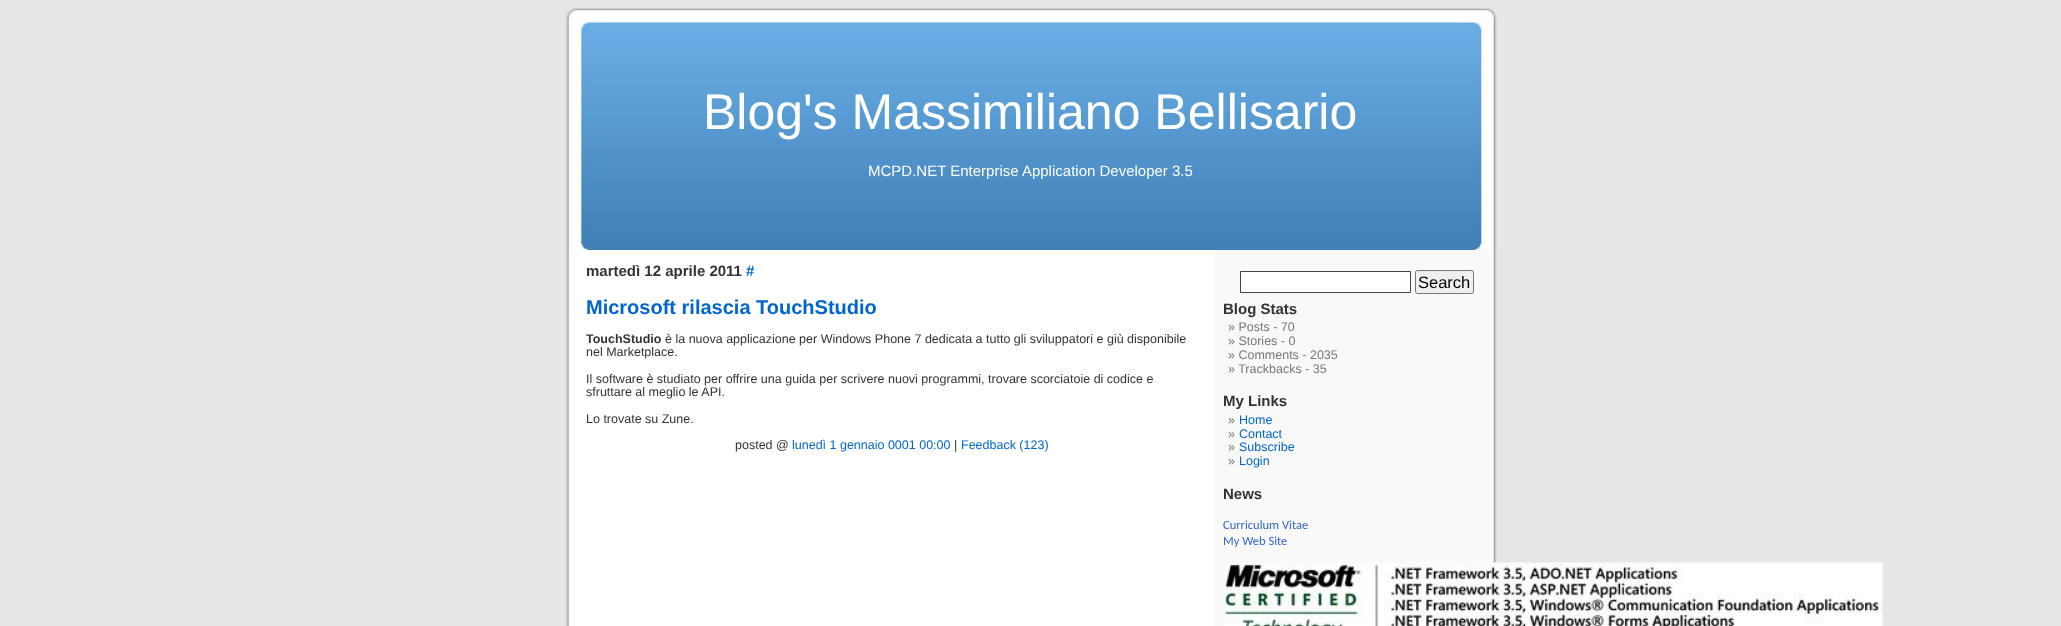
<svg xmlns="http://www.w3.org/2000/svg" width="2061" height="626">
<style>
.a{font:50px Liberation Sans;fill:#fff}
.b{font:15px Liberation Sans;fill:#fff}
.c{font:bold 15px Liberation Sans;fill:#333}
.d{font:bold 15px Liberation Sans;fill:#06c}
.e{font:bold 20px Liberation Sans;fill:#06c}
.f{font:bold 12.5px Liberation Sans;fill:#333}
.g{font:12.5px Liberation Sans;fill:#333}
.h{font:12.5px Liberation Sans;fill:#06c}
.i{font:16.5px Liberation Sans;fill:#000}
.j{font:12.5px Liberation Sans;fill:#777}
.k{font:12.5px Carlito;fill:#36c}
</style>
<rect width="100%" height="100%" fill="#e7e7e7"/>
<image href="1.png" x="565" y="8" width="932" height="242"/>
<image href="2.png" x="565" y="250" width="932" height="376"/>
<path fill="#fff" stroke="#444" d="M1240.5 271.5h170v21H1240.5z"/>
<rect fill="#efefef" stroke="#767676" x="1415.5" y="270.5" width="58" height="23" rx="2"/>
<image href="3.png" x="1224" y="562" width="659" height="64"/>
<text class="a" x="703" y="129">Blog's Massimiliano Bellisario</text>
<text class="b" x="868" y="176">MCPD.NET Enterprise Application Developer 3.5</text>
<text class="c" x="586" y="276">martedì 12 aprile 2011</text>
<text class="d" x="746" y="276">#</text>
<text class="e" x="586" y="314">Microsoft rilascia TouchStudio</text>
<text class="f" x="586" y="343">TouchStudio</text>
<text class="g" x="665" y="343">è la nuova applicazione per Windows Phone 7 dedicata a tutto gli sviluppatori e giù disponibile</text>
<text class="g" x="586" y="356">nel Marketplace.</text>
<text class="g" x="586" y="383">Il software è studiato per offrire una guida per scrivere nuovi programmi, trovare scorciatoie di codice e</text>
<text class="g" x="586" y="396">sfruttare al meglio le API.</text>
<text class="g" x="586" y="423">Lo trovate su Zune.</text>
<text class="g" x="735" y="449">posted @</text>
<text class="h" x="792" y="449">lunedì 1 gennaio 0001 00:00</text>
<text class="g" x="954" y="449">|</text>
<text class="h" x="961" y="449">Feedback (123)</text>
<text class="i" x="1418" y="288">Search</text>
<text class="c" x="1223" y="314">Blog Stats</text>
<text class="j" x="1228" y="331">» Posts - 70</text>
<text class="j" x="1228" y="345">» Stories - 0</text>
<text class="j" x="1228" y="359">» Comments - 2035</text>
<text class="j" x="1228" y="373">» Trackbacks - 35</text>
<text class="c" x="1223" y="406">My Links</text>
<text class="j" x="1228" y="424">»</text>
<text class="h" x="1239" y="424">Home</text>
<text class="j" x="1228" y="438">»</text>
<text class="h" x="1239" y="438">Contact</text>
<text class="j" x="1228" y="451">»</text>
<text class="h" x="1239" y="451">Subscribe</text>
<text class="j" x="1228" y="465">»</text>
<text class="h" x="1239" y="465">Login</text>
<text class="c" x="1223" y="499">News</text>
<text class="k" x="1223" y="529">Curriculum Vitae</text>
<text class="k" x="1223" y="545">My Web Site</text>
</svg>
